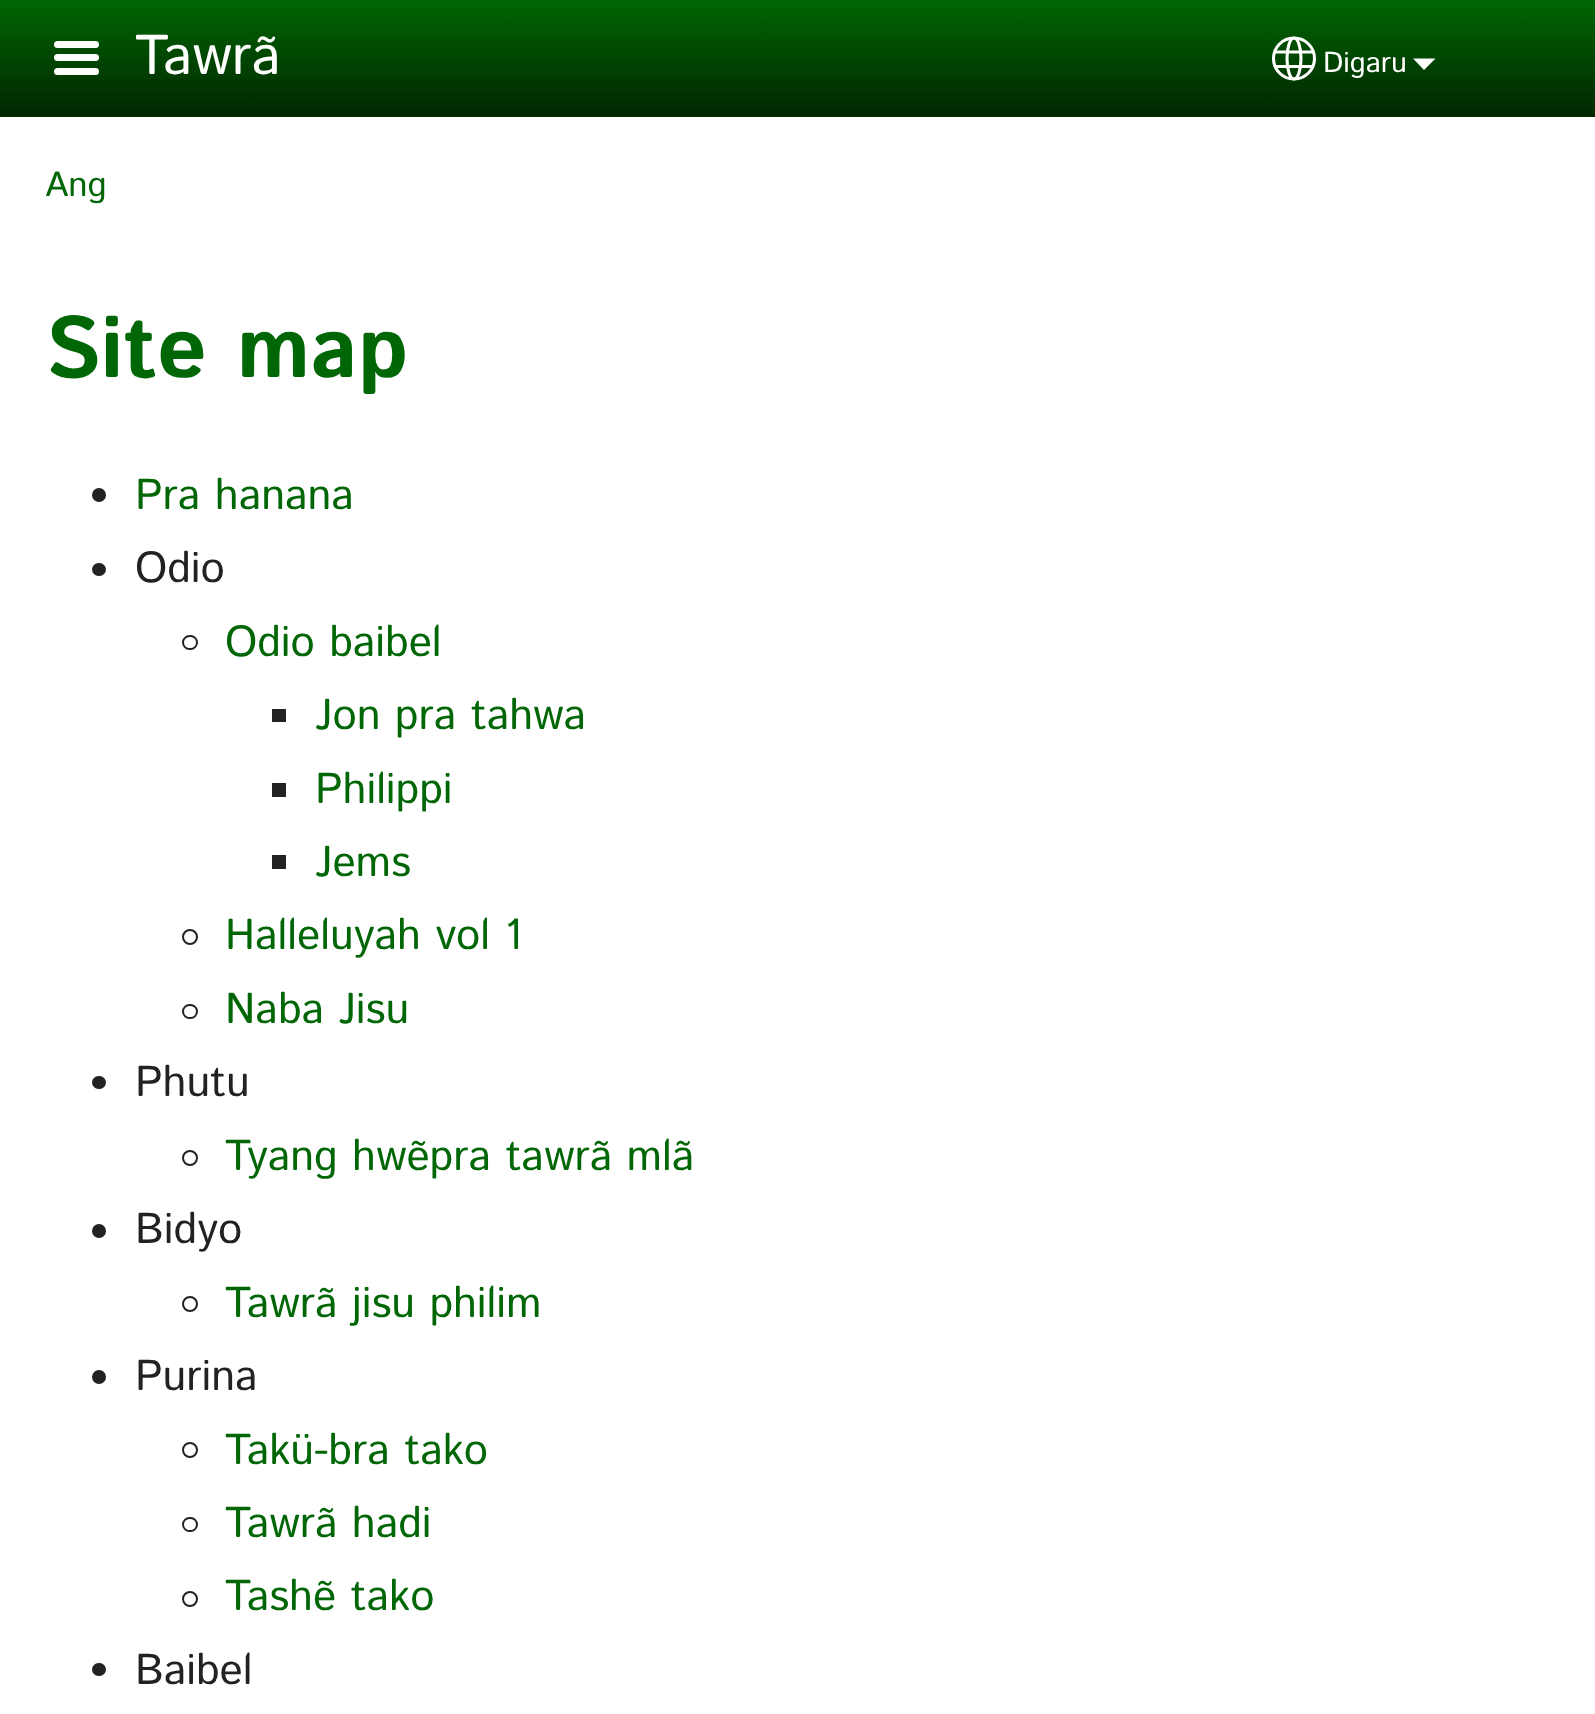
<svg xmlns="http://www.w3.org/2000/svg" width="1595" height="1714">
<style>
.a{font:56px Istok Web;fill:#fffffe}
.b{font:29px Istok Web;fill:#fffffe}
.c{font:35px Istok Web;fill:#016605}
.d{font:bold 86.5px Istok Web;fill:#016605}
.e{font:43.25px Istok Web;fill:#016605}
.f{font:43.25px Istok Web;fill:#222}
</style>
<defs>
<linearGradient id="g1" gradientUnits="userSpaceOnUse" x1="798" y1="0" x2="798" y2="117"><stop offset="0" stop-color="#016602"/><stop offset="1" stop-color="#012601"/></linearGradient>
</defs>
<rect width="100%" height="100%" fill="#fff"/>
<path fill="url(#g1)" d="M0 0h1595v117H0z"/>
<rect fill="#fffffe" x="54" y="41" width="45" height="7" rx="3.5"/>
<rect fill="#fffffe" x="54" y="54" width="45" height="7" rx="3.5"/>
<rect fill="#fffffe" x="54" y="68" width="45" height="7" rx="3.5"/>
<circle fill="none" stroke="#fffffe" stroke-width="3.1" cx="1294" cy="58.5" r="20.5"/>
<ellipse fill="none" stroke="#fffffe" stroke-width="3.1" cx="1294" cy="58.5" rx="7" ry="20.5"/>
<path fill="none" stroke="#fffffe" stroke-width="3.1" d="M1274 52h39"/>
<path fill="#fffffe" d="M1274 65h39v3H1274z"/>
<path fill="#fffffe" d="M1413 58.5h22.5l-11.5 11.5z"/>
<circle fill="#222" cx="99" cy="495" r="7"/>
<rect fill="#222" x="92" y="563" width="14" height="13" rx="6.5"/>
<rect fill="none" stroke="#222" stroke-width="2" x="183" y="636" width="14" height="13" rx="6.5"/>
<path fill="#222" d="M272 709h14v13H272z"/>
<path fill="#222" d="M272 783h14v14H272z"/>
<path fill="#222" d="M272 855h14v14H272z"/>
<circle fill="none" stroke="#222" stroke-width="2" cx="190" cy="937" r="7"/>
<rect fill="none" stroke="#222" stroke-width="2" x="183" y="1005" width="14" height="13" rx="6.5"/>
<rect fill="#222" x="92" y="1076" width="14" height="13" rx="6.5"/>
<circle fill="none" stroke="#222" stroke-width="2" cx="190" cy="1158" r="7"/>
<circle fill="#222" cx="99" cy="1231" r="7"/>
<circle fill="none" stroke="#222" stroke-width="2" cx="190" cy="1304" r="7"/>
<circle fill="#222" cx="99" cy="1377" r="7"/>
<circle fill="none" stroke="#222" stroke-width="2" cx="190" cy="1450" r="7"/>
<rect fill="none" stroke="#222" stroke-width="2" x="183" y="1518" width="14" height="13" rx="6.5"/>
<circle fill="none" stroke="#222" stroke-width="2" cx="190" cy="1599" r="7"/>
<rect fill="#222" x="92" y="1663" width="14" height="13" rx="6.5"/>
<text class="a" x="135" y="74">Tawrã</text>
<text class="b" x="1323" y="72">Digaru</text>
<text class="c" x="45" y="196">Ang</text>
<text class="d" x="45" y="377">Site map</text>
<text class="e" x="135" y="509">Pra hanana</text>
<text class="f" x="135" y="582">Odio</text>
<text class="e" x="225" y="656">Odio baibel</text>
<text class="e" x="315" y="729">Jon pra tahwa</text>
<text class="e" x="315" y="803">Philippi</text>
<text class="e" x="315" y="876">Jems</text>
<text class="e" x="225" y="949">Halleluyah vol 1</text>
<text class="e" x="225" y="1023">Naba Jisu</text>
<text class="f" x="135" y="1096">Phutu</text>
<text class="e" x="225" y="1170">Tyang hwẽpra tawrã mlã</text>
<text class="f" x="135" y="1243">Bidyo</text>
<text class="e" x="225" y="1317">Tawrã jisu philim</text>
<text class="f" x="135" y="1390">Purina</text>
<text class="e" x="225" y="1464">Takü-bra tako</text>
<text class="e" x="225" y="1537">Tawrã hadi</text>
<text class="e" x="225" y="1610">Tashẽ tako</text>
<text class="f" x="135" y="1684">Baibel</text>
</svg>
